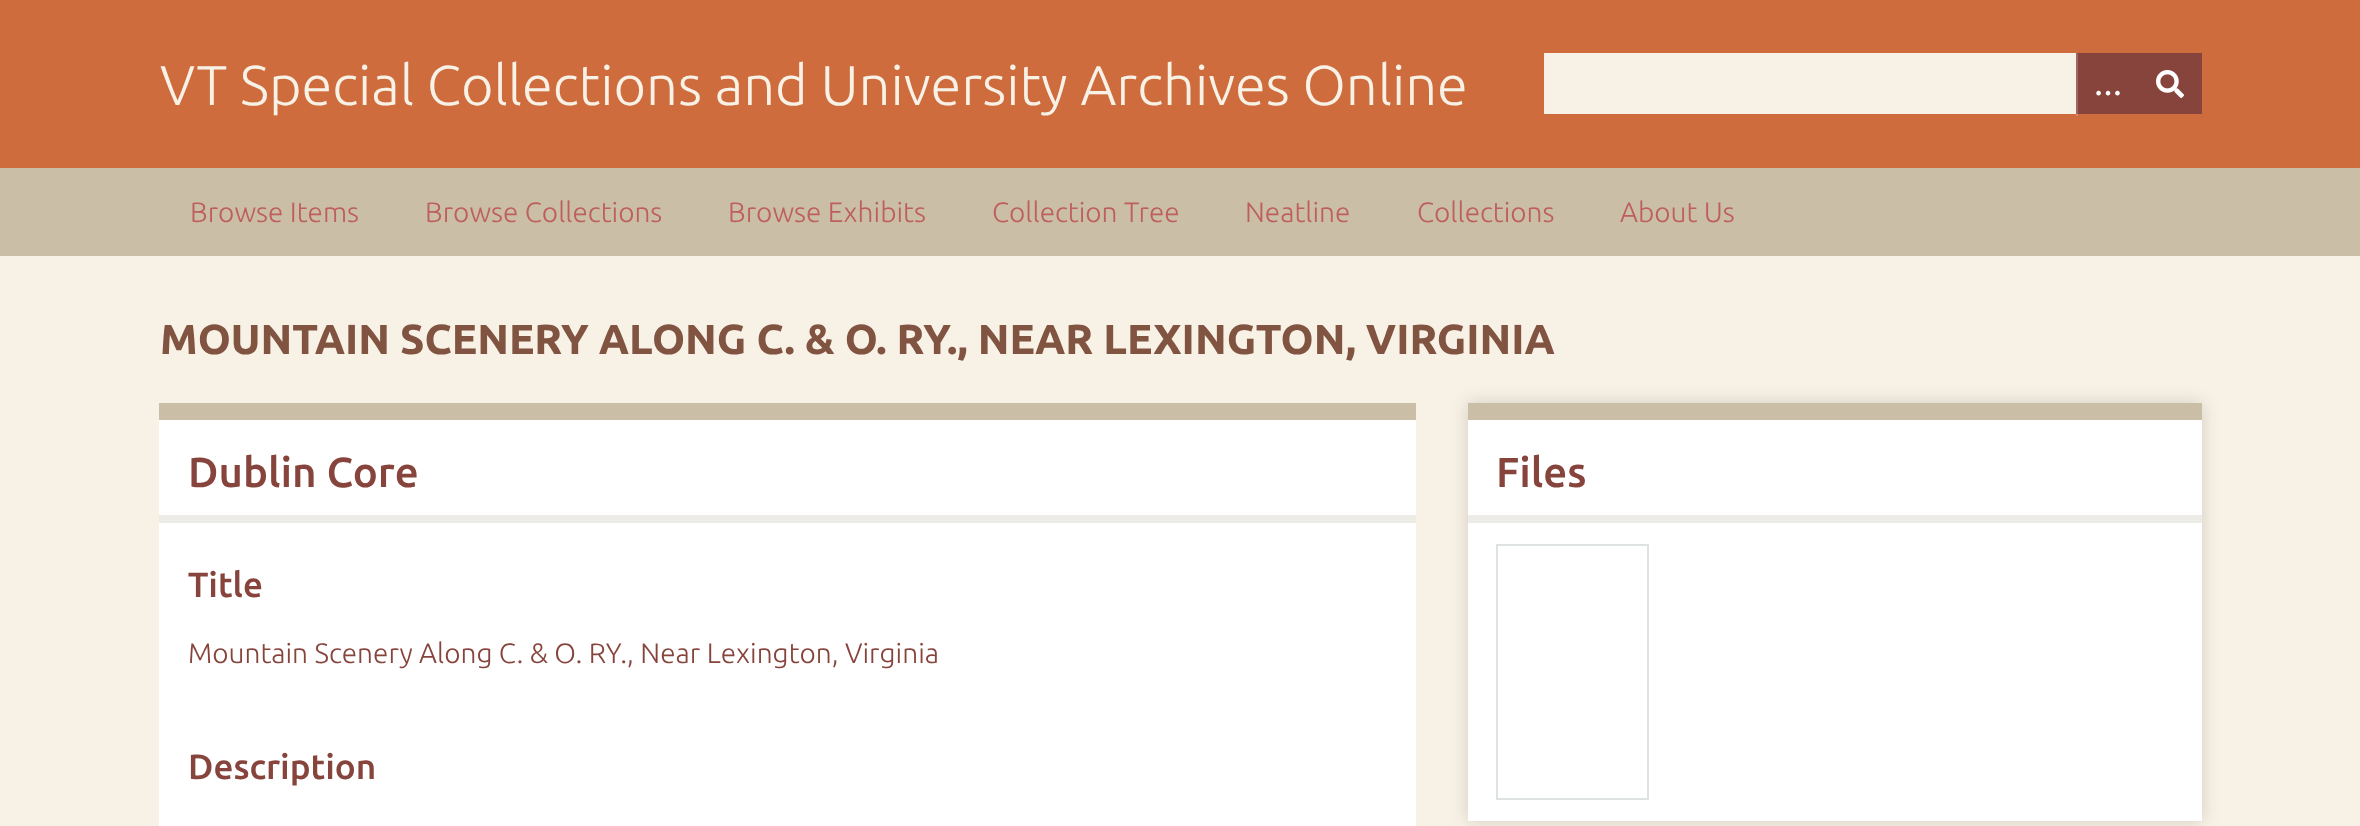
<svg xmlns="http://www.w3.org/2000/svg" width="2360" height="826">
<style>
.a{font:300 56px Ubuntu;fill:#f8f1e5}
.b{font:bold 28px Liberation Serif;fill:#fff}
.c{font:300 28px Ubuntu;fill:#be5e5e}
.d{font:bold 42px Ubuntu;fill:#815442}
.e{font:500 42px Ubuntu;fill:#86443c}
.f{font:500 35px Ubuntu;fill:#86443c}
.g{font:300 28px Ubuntu;fill:#86443c}
</style>
<rect width="100%" height="100%" fill="#ce6c3e"/>
<path fill="#d88965" d="M2076 114h2v2H2076z"/>
<path fill="#f8f1e5" d="M1544 53h532v61H1544z"/>
<path fill="#86443c" d="M2078 53h124v61H2078z"/>
<path fill="#9e6963" d="M2076 53h2v61H2076z"/>
<image href="1.png" x="2156" y="70" width="28" height="28"/>
<path fill="#cabfa6" d="M0 168h2360v88H0z"/>
<path fill="#f8f1e5" d="M0 256h2360v570H0z"/>
<path fill="#fff" d="M159 420h1257v406H159z"/>
<path fill="#cabfa6" d="M159 403h1257v17H159z"/>
<path fill="#ecebe6" d="M159 515h1257v8H159z"/>
<path fill="#00000026" filter="blur(9px)" d="M1468 403h734v418H1468z"/>
<path fill="#fff" d="M1468 420h734v401H1468z"/>
<path fill="#cabfa6" d="M1468 403h734v17H1468z"/>
<path fill="#ecebe6" d="M1468 515h734v8H1468z"/>
<path fill="none" stroke="#dfe2e2" stroke-width="2" d="M1497 545h151v254H1497z"/>
<text class="a" x="160" y="105">VT Special Collections and University Archives Online</text>
<text class="b" x="2094" y="95">…</text>
<text class="c" x="190" y="222">Browse Items</text>
<text class="c" x="425" y="222">Browse Collections</text>
<text class="c" x="728" y="222">Browse Exhibits</text>
<text class="c" x="992" y="222">Collection Tree</text>
<text class="c" x="1245" y="222">Neatline</text>
<text class="c" x="1417" y="222">Collections</text>
<text class="c" x="1620" y="222">About Us</text>
<text class="d" x="160" y="354">MOUNTAIN SCENERY ALONG C. &amp; O. RY., NEAR LEXINGTON, VIRGINIA</text>
<text class="e" x="188" y="487">Dublin Core</text>
<text class="f" x="188" y="597">Title</text>
<text class="g" x="188" y="663">Mountain Scenery Along C. &amp; O. RY., Near Lexington, Virginia</text>
<text class="f" x="188" y="779">Description</text>
<text class="e" x="1496" y="487">Files</text>
</svg>
